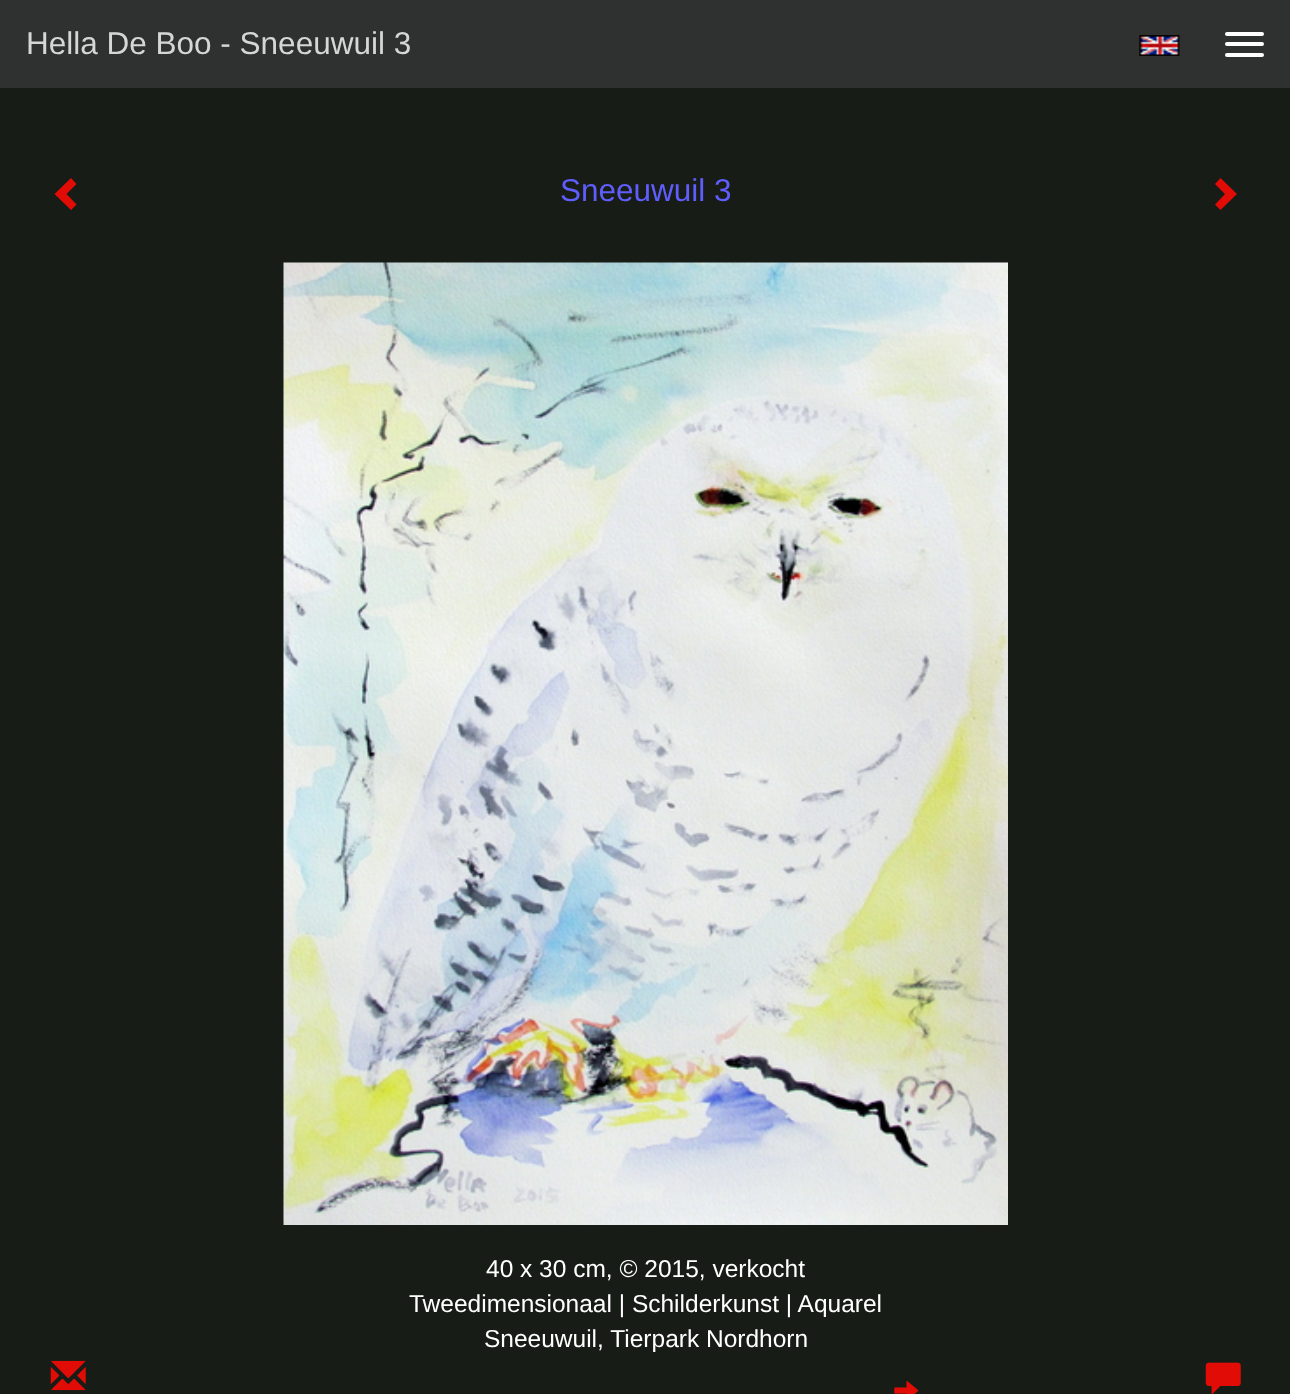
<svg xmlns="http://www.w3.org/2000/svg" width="1290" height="1394">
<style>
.a{font:31.5px Liberation Sans;fill:#d5d6d6}
.b{font:31.5px Liberation Sans;fill:#5f5efd}
.c{font:24.5px Liberation Sans;fill:#fff}
</style>
<rect width="100%" height="100%" fill="#171c17"/>
<path fill="#2f3130" d="M0 0h1290v88H0z"/>
<rect fill="#fff" x="1225" y="32" width="39" height="4" rx="2"/>
<rect fill="#fff" x="1225" y="42" width="39" height="4" rx="2"/>
<rect fill="#fff" x="1225" y="53" width="39" height="4" rx="2"/>
<image href="1.png" x="1139" y="35" width="41" height="21"/>
<path fill="#e10c05" d="M76.5 184l-10 10l10 10.5l-5.5 5.5l-16.5-16l16.5-16z"/>
<path fill="#e10c05" d="M1237 194l-16.5 16l-5.5-5.5l10-10.5l-10-10l5.5-6z"/>
<image href="2.png" x="283" y="262" width="725" height="963"/>
<image href="3.png" x="50" y="1360" width="36" height="31"/>
<image href="4.png" x="894" y="1381" width="25" height="13"/>
<image href="5.png" x="1205" y="1362" width="36" height="32"/>
<text class="a" x="26" y="54">Hella De Boo - Sneeuwuil 3</text>
<text class="b" x="560" y="201">Sneeuwuil 3</text>
<text class="c" x="486" y="1277">40 x 30 cm, © 2015, verkocht</text>
<text class="c" x="409" y="1312">Tweedimensionaal | Schilderkunst | Aquarel</text>
<text class="c" x="484" y="1347">Sneeuwuil, Tierpark Nordhorn</text>
</svg>
